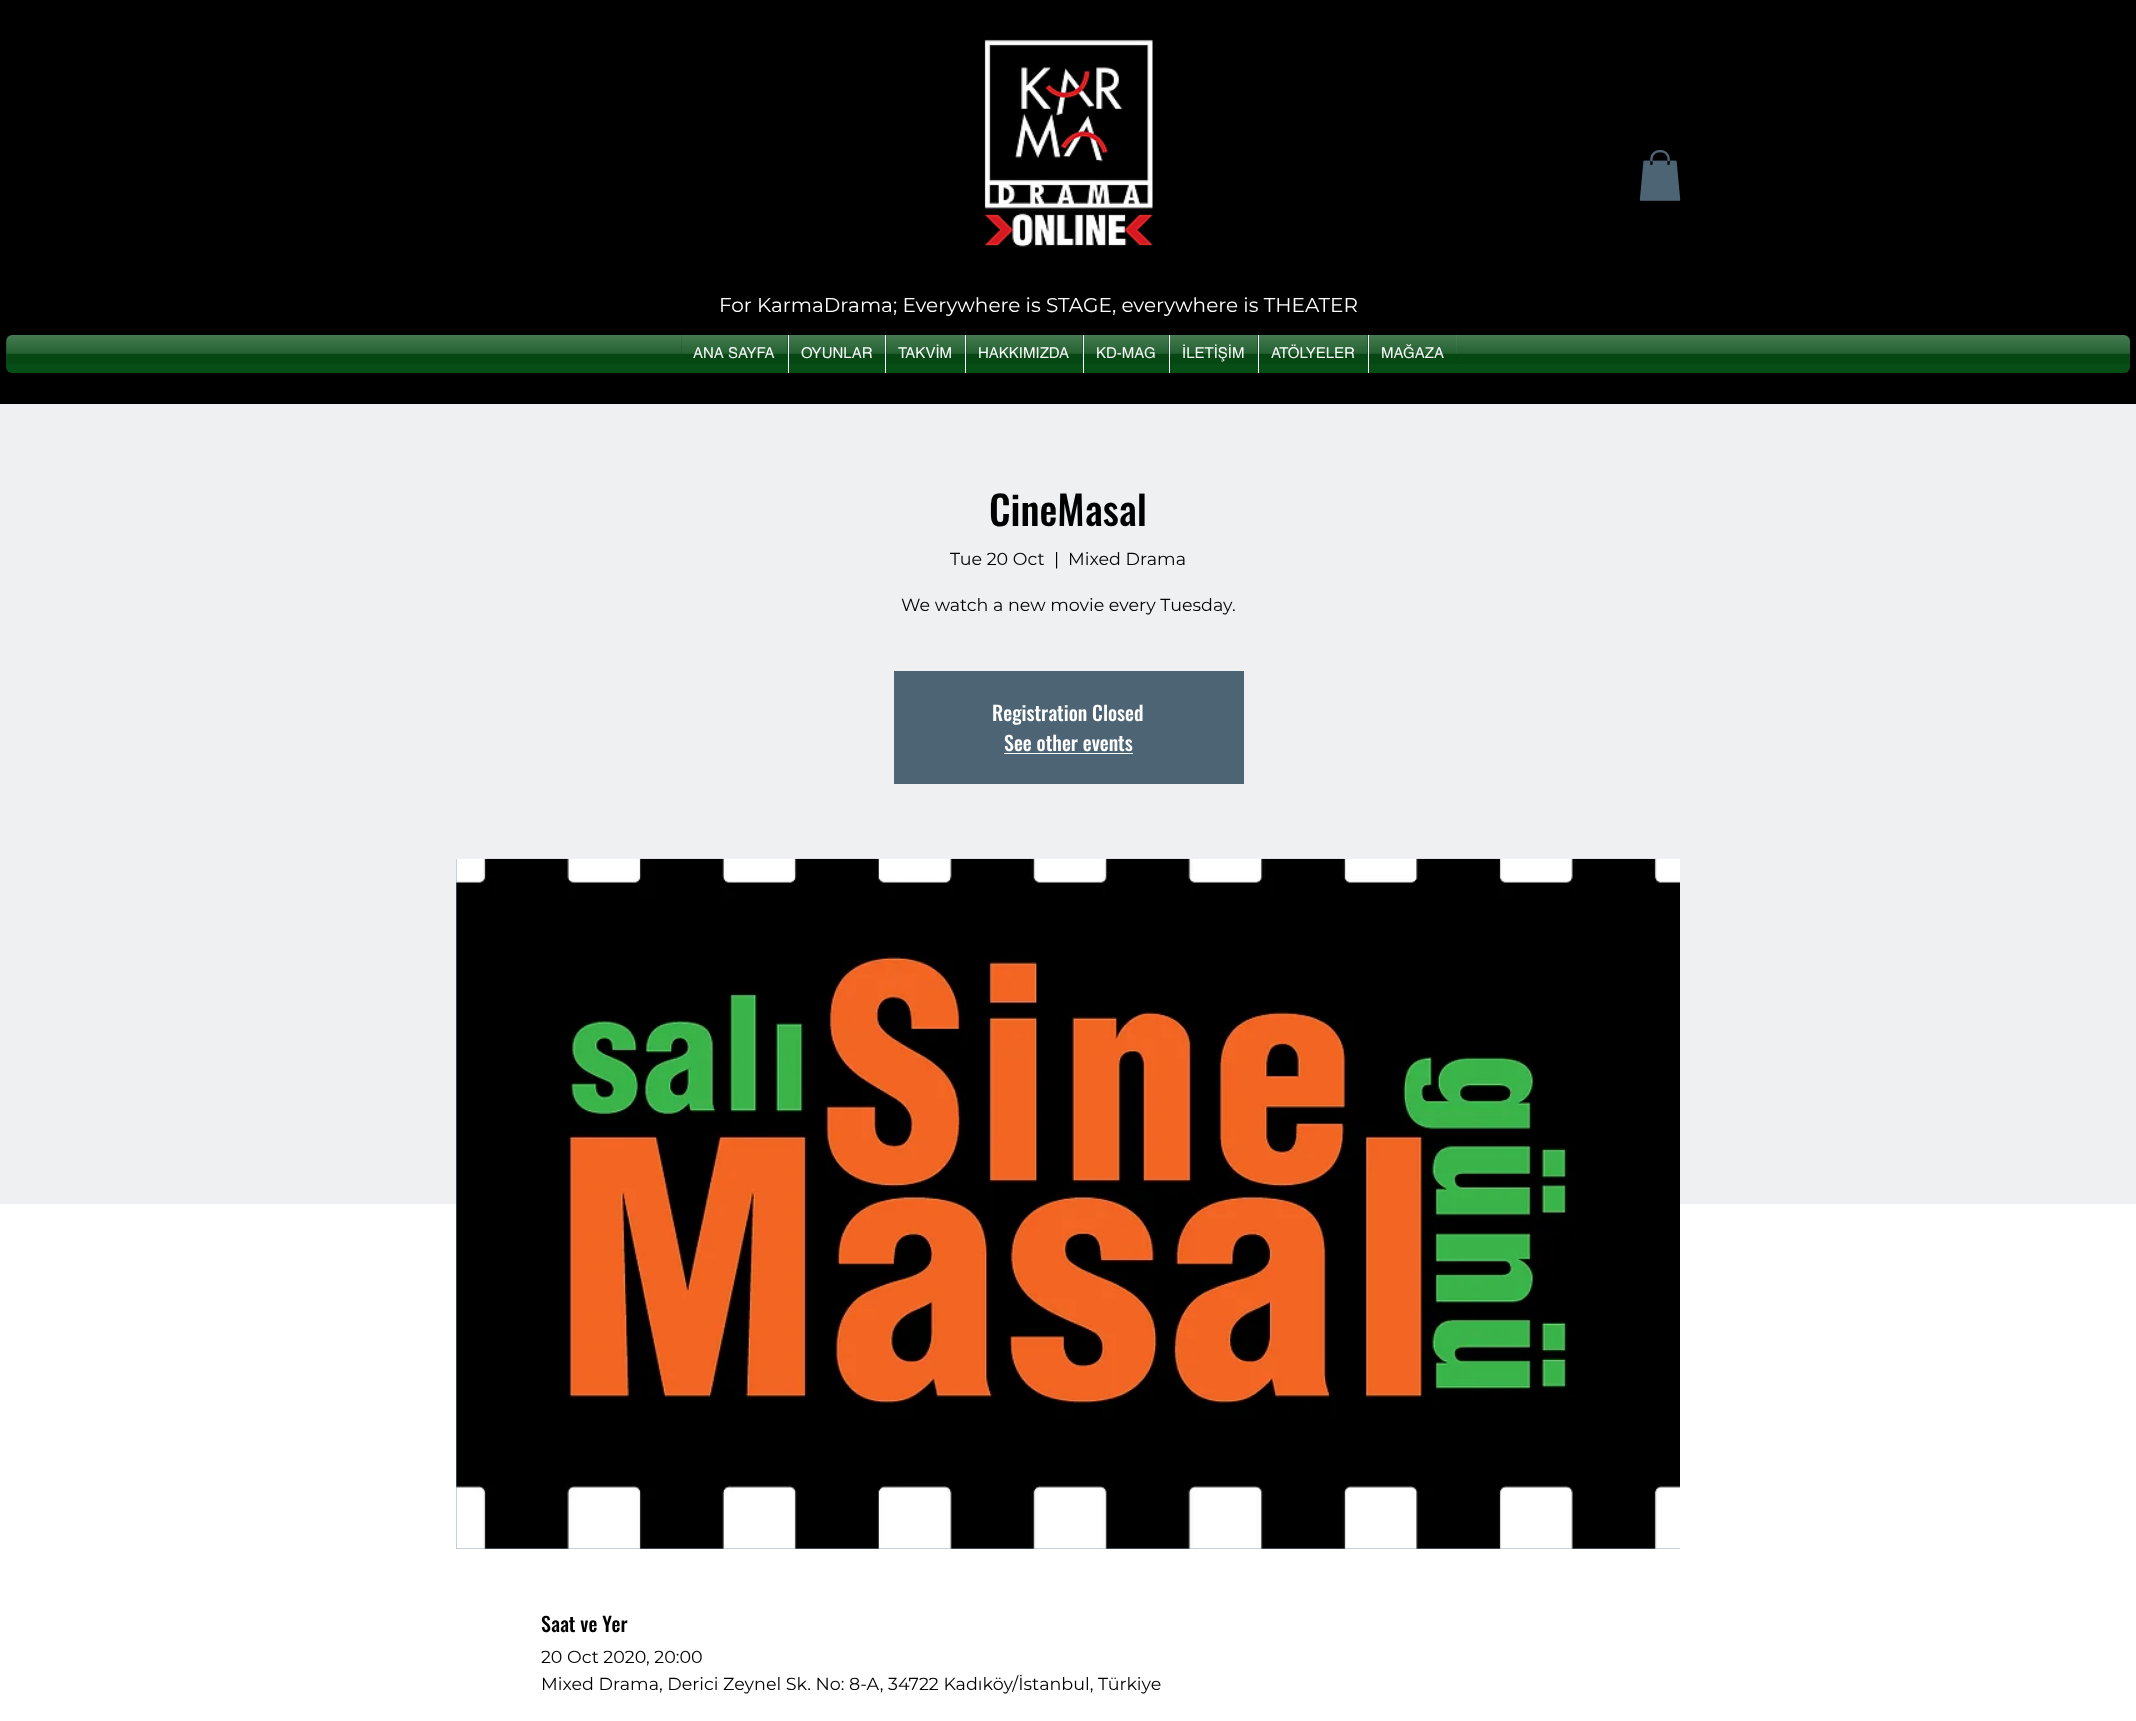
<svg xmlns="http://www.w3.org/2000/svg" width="2136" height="1721">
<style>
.a{font:20px Montserrat;fill:#fff}
.b{font:15px helvetica;fill:#fff}
.c{font:500 40px Oswald;fill:#000}
.d{font:17.5px Montserrat;fill:#000}
.e{font:500 20px Oswald;fill:#fff}
.f{font:500 20px Oswald;fill:#000}
</style>
<rect width="100%" height="100%" fill="#000"/>
<image href="1.png" x="984" y="39" width="169" height="208"/>
<image href="2.png" x="1639" y="150" width="42" height="51"/>
<rect fill="#074d16" x="6" y="335" width="2124" height="38" rx="6"/>
<image href="3.png" x="6" y="335" width="2124" height="29"/>
<path fill="#074d16" d="M681 335h107v29H681z"/>
<path fill="#074d16" d="M789 335h96v29H789z"/>
<path fill="#fff" d="M788 335h1v38H788z"/>
<path fill="#074d16" d="M886 335h79v29H886z"/>
<path fill="#fff" d="M885 335h1v38H885z"/>
<path fill="#074d16" d="M966 335h117v29H966z"/>
<path fill="#fff" d="M965 335h1v38H965z"/>
<path fill="#074d16" d="M1084 335h85v29H1084z"/>
<path fill="#fff" d="M1083 335h1v38H1083z"/>
<path fill="#074d16" d="M1170 335h88v29H1170z"/>
<path fill="#fff" d="M1169 335h1v38H1169z"/>
<path fill="#074d16" d="M1259 335h109v29H1259z"/>
<path fill="#fff" d="M1258 335h1v38H1258z"/>
<path fill="#074d16" d="M1369 335h87v29H1369z"/>
<path fill="#fff" d="M1368 335h1v38H1368z"/>
<path fill="#eef0f2" d="M0 404h2136v800H0z"/>
<path fill="#4c6474" d="M894 671h350v113H894z"/>
<path fill="#fff" d="M1004 753h129v1H1004z"/>
<path fill="#fff" d="M0 1204h2136v517H0z"/>
<path fill="#7f99ab" d="M456 859h1224v690H456z"/>
<image href="12.png" x="456" y="858" width="1224" height="691"/>
<text class="a" x="719" y="312">For KarmaDrama; Everywhere is STAGE, everywhere is THEATER</text>
<text class="b" x="693" y="358">ANA SAYFA</text>
<image href="4.png" x="681" y="335" width="107" height="29"/>
<text class="b" x="801" y="358">OYUNLAR</text>
<image href="5.png" x="789" y="335" width="96" height="29"/>
<text class="b" x="898" y="358">TAKVİM</text>
<image href="6.png" x="886" y="335" width="79" height="29"/>
<text class="b" x="978" y="358">HAKKIMIZDA</text>
<image href="7.png" x="966" y="335" width="117" height="29"/>
<text class="b" x="1096" y="358">KD-MAG</text>
<image href="8.png" x="1084" y="335" width="85" height="29"/>
<text class="b" x="1182" y="358">İLETİŞİM</text>
<image href="9.png" x="1170" y="335" width="88" height="29"/>
<text class="b" x="1271" y="358">ATÖLYELER</text>
<image href="10.png" x="1259" y="335" width="109" height="29"/>
<text class="b" x="1381" y="358">MAĞAZA</text>
<image href="11.png" x="1369" y="335" width="88" height="29"/>
<text class="c" x="989" y="526">CineMasal</text>
<text class="d" x="950" y="565">Tue 20 Oct</text>
<text class="d" x="1054" y="565">|</text>
<text class="d" x="1068" y="565">Mixed Drama</text>
<text class="d" x="901" y="611">We watch a new movie every Tuesday.</text>
<text class="e" x="992" y="721">Registration Closed</text>
<text class="e" x="1004" y="751">See other events</text>
<text class="f" x="541" y="1632">Saat ve Yer</text>
<text class="d" x="541" y="1663">20 Oct 2020, 20:00</text>
<text class="d" x="541" y="1690">Mixed Drama, Derici Zeynel Sk. No: 8-A, 34722 Kadıköy/İstanbul, Türkiye</text>
</svg>
